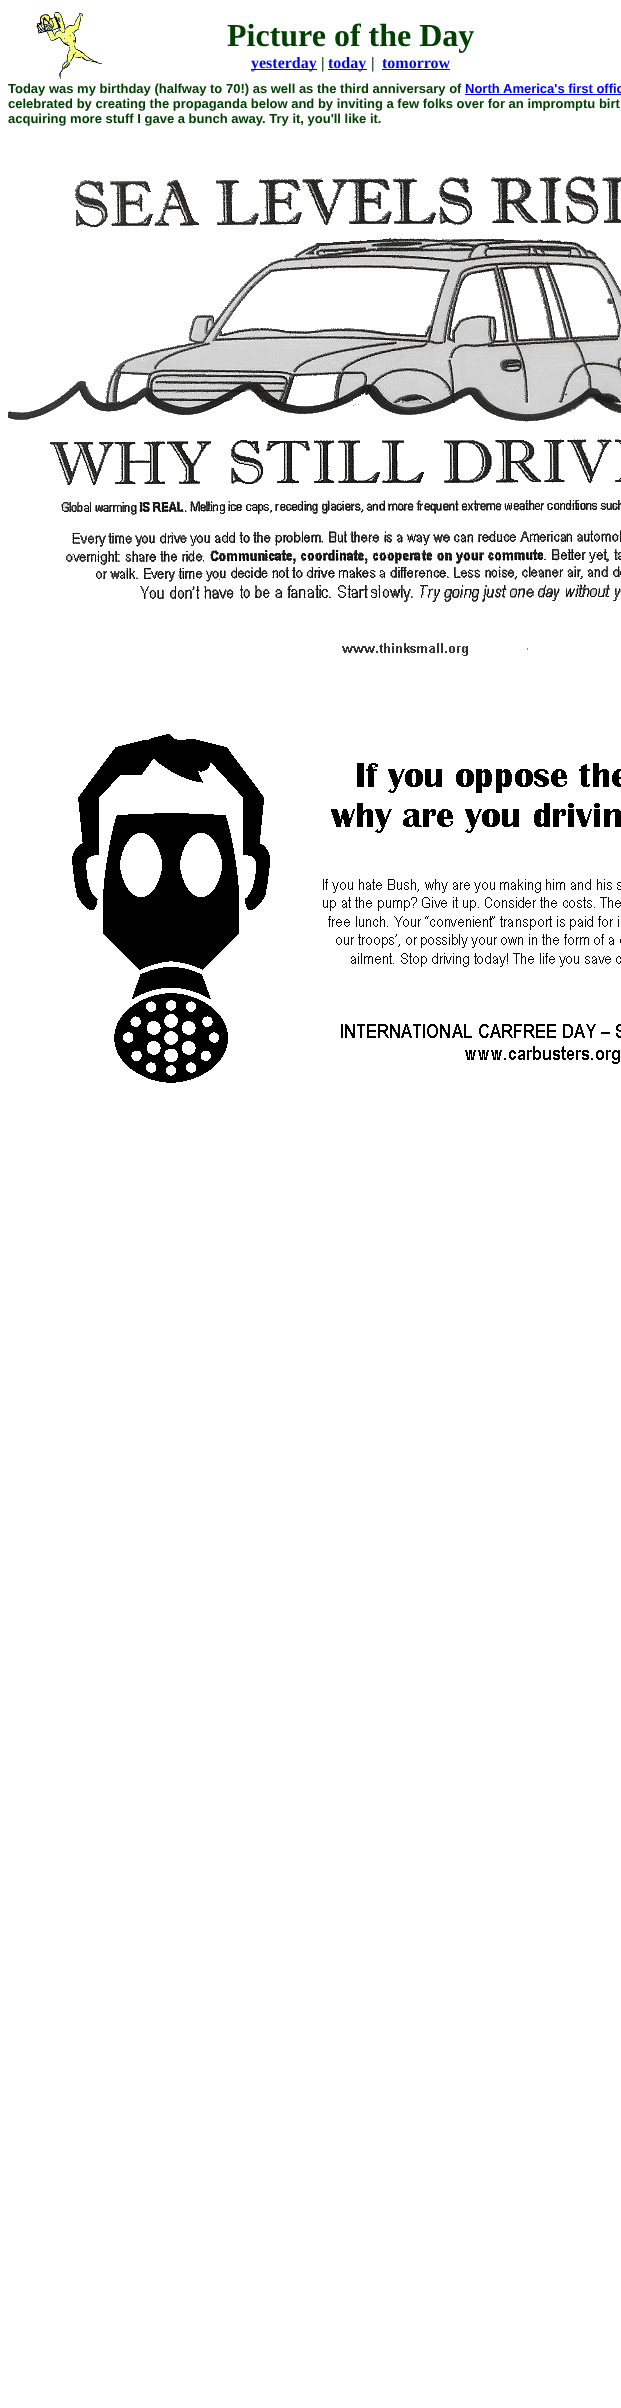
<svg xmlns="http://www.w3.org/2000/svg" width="621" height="2408">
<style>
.a{font:bold 32px Liberation Serif;fill:#004000}
.b{font:bold 16px Liberation Serif;fill:#00f}
.c{font:bold 16px Liberation Serif;fill:#004000}
.d{font:bold 13px Liberation Sans;fill:#004000}
.e{font:bold 13px Liberation Sans;fill:#00f}
</style>
<rect width="100%" height="100%" fill="#fff"/>
<image href="1.png" x="36" y="12" width="66" height="67"/>
<path fill="#00f" d="M251 69h66v1H251z"/>
<path fill="#00f" d="M328 69h39v1H328z"/>
<path fill="#00f" d="M382 69h68v1H382z"/>
<path fill="#00f" d="M465 94h156v1H465z"/>
<image href="2.png" x="8" y="176" width="613" height="907"/>
<text class="a" x="227" y="46">Picture of the Day</text>
<text class="b" x="251" y="68">yesterday</text>
<text class="c" x="321" y="68">|</text>
<text class="b" x="328" y="68">today</text>
<text class="c" x="371" y="68">|</text>
<text class="b" x="382" y="68">tomorrow</text>
<text class="d" x="8" y="93">Today was my birthday (halfway to 70!) as well as the third anniversary of</text>
<text class="e" x="465" y="93">North</text>
<text class="e" x="503" y="93">America's first offic</text>
<text class="d" x="8" y="108">celebrated by creating the propaganda below and by inviting a few folks over for an impromptu birt</text>
<text class="d" x="8" y="123">acquiring more stuff I gave a bunch away. Try it, you'll like it.</text>
</svg>
